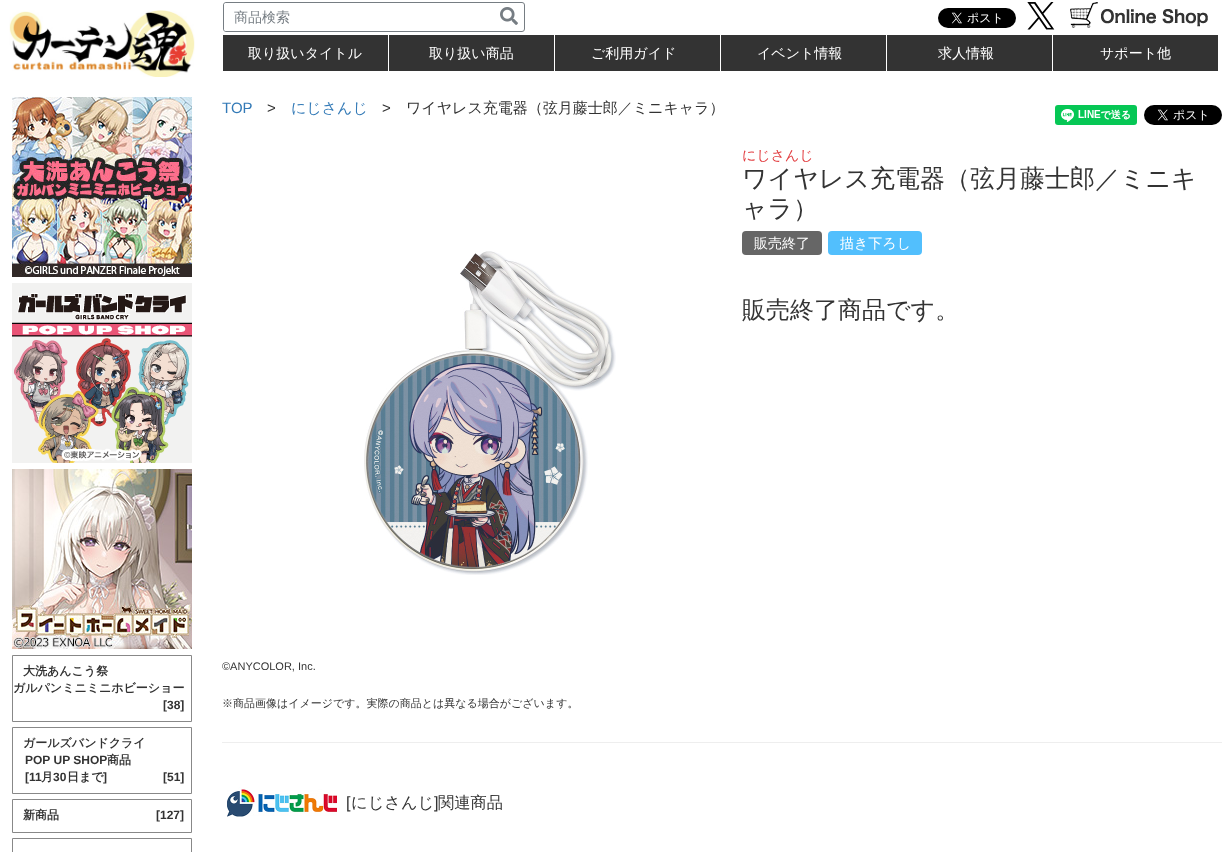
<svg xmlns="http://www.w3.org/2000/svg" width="1223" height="852">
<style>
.a{font:500 14px WenQuanYi Zen Hei;fill:#767d83}
.b{font:500 14px WenQuanYi Zen Hei;fill:#fff}
.c{font:bold 12px WenQuanYi Zen Hei;fill:#333}
.d{font:bold 12px Liberation Sans;fill:#333}
.e{font:15px Liberation Sans;fill:#337ab7}
.f{font:15px Liberation Sans;fill:#333}
.g{font:500 15px WenQuanYi Zen Hei;fill:#337ab7}
.h{font:500 15px WenQuanYi Zen Hei;fill:#333}
.i{font:500 14px WenQuanYi Zen Hei;fill:#e23d40}
.j{font:500 25px WenQuanYi Zen Hei;fill:#333}
.k{font:500 24px WenQuanYi Zen Hei;fill:#333}
.l{font:11px Liberation Sans;fill:#333}
.m{font:500 11px WenQuanYi Zen Hei;fill:#333}
.n{font:16.25px Liberation Sans;fill:#333}
.o{font:500 16.25px WenQuanYi Zen Hei;fill:#333}
</style>
<defs>
<clipPath id="clip1"><path d="M222 97h1000v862H222z"/></clipPath>
</defs>
<rect width="100%" height="100%" fill="#fff"/>
<image href="1.png" x="9" y="10" width="186" height="67"/>
<rect fill="none" stroke="#767d83" x="223.5" y="2.5" width="301" height="29" rx="2.5"/>
<path fill="#fff" d="M226 3h266v28h-266c-1 0-2-1-2-2v-24c0-1 1-2 2-2z"/>
<image href="2.png" x="500" y="7" width="18" height="18"/>
<image href="3.png" x="938" y="8" width="78" height="20"/>
<image href="4.png" x="1027" y="2" width="28" height="28"/>
<image href="5.png" x="1070" y="2" width="138" height="26"/>
<path fill="#333" d="M223 35h165v36H223z"/>
<path fill="#333" d="M389 35h165v36H389z"/>
<path fill="#333" d="M555 35h165v36H555z"/>
<path fill="#333" d="M721 35h165v36H721z"/>
<path fill="#333" d="M887 35h165v36H887z"/>
<path fill="#333" d="M1053 35h165v36H1053z"/>
<image href="6.png" x="12" y="97" width="180" height="180"/>
<image href="7.png" x="12" y="283" width="180" height="180"/>
<image href="8.png" x="12" y="469" width="180" height="180"/>
<path fill="none" stroke="#888" d="M12.5 655.5h179v66H12.5z"/>
<path fill="none" stroke="#888" d="M12.5 727.5h179v66H12.5z"/>
<path fill="none" stroke="#888" d="M12.5 799.5h179v33H12.5z"/>
<path fill="none" stroke="#888" d="M12.5 838.5h179v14H12.5z"/>
<image href="9.png" x="1055" y="105" width="82" height="20"/>
<image href="10.png" x="1144" y="105" width="78" height="20"/>
<rect fill="#666" x="742" y="231" width="80" height="24" rx="4"/>
<rect fill="#52bffd" x="828" y="231" width="94" height="24" rx="4"/>
<image href="11.png" x="364" y="251" width="252" height="324"/>
<path fill="#eee" d="M222 742h1000v1H222z"/>
<image href="12.png" x="227" y="787" width="110" height="30"/>
<text class="a" x="234" y="22">商品検索</text>
<text class="b" x="248" y="58">取り扱いタイトル</text>
<text class="b" x="429" y="58">取り扱い商品</text>
<text class="b" x="591" y="58">ご利用ガイド</text>
<text class="b" x="757" y="58">イベント情報</text>
<text class="b" x="938" y="58">求人情報</text>
<text class="b" x="1100" y="58">サポート他</text>
<text class="c" x="23" y="675">大洗あんこう祭</text>
<text class="c" x="13" y="692">ガルパンミニミニホビーショー</text>
<text class="d" x="163" y="709">[38]</text>
<text class="c" x="23" y="747">ガールズバンドクライ</text>
<text class="d" x="25" y="764">POP UP SHOP</text>
<text class="c" x="107" y="764">商品</text>
<text class="d" x="25" y="781">[11</text>
<text class="c" x="41" y="781">月</text>
<text class="d" x="53" y="781">30</text>
<text class="c" x="67" y="781">日まで</text>
<text class="d" x="103" y="781">]</text>
<text class="d" x="163" y="781">[51]</text>
<text class="c" x="23" y="819">新商品</text>
<text class="d" x="156" y="819">[127]</text>
<text class="e" x="222" y="113">TOP</text>
<text class="f" x="267" y="113">&gt;</text>
<text class="g" x="291" y="113">にじさんじ</text>
<text class="f" x="382" y="113">&gt;</text>
<text class="h" x="406" y="113">ワイヤレス充電器（弦月藤士郎／ミニキャラ）</text>
<text class="i" x="742" y="160">にじさんじ</text>
<text class="j" x="742" y="187">ワイヤレス充電器（弦月藤士郎／ミニキ</text>
<text class="j" x="742" y="217">ャラ）</text>
<text class="b" x="754" y="248">販売終了</text>
<text class="b" x="840" y="248">描き下ろし</text>
<text class="k" x="742" y="318">販売終了商品です。</text>
<g clip-path="url(#clip1)">
<text class="l" x="222" y="670">©ANYCOLOR, Inc.</text>
</g>
<text class="m" x="222" y="707">※商品画像はイメージです。実際の商品とは異なる場合がございます。</text>
<text class="n" x="346" y="808">[</text>
<text class="o" x="351" y="808">にじさんじ</text>
<text class="n" x="434" y="808">]</text>
<text class="o" x="438" y="808">関連商品</text>
</svg>
